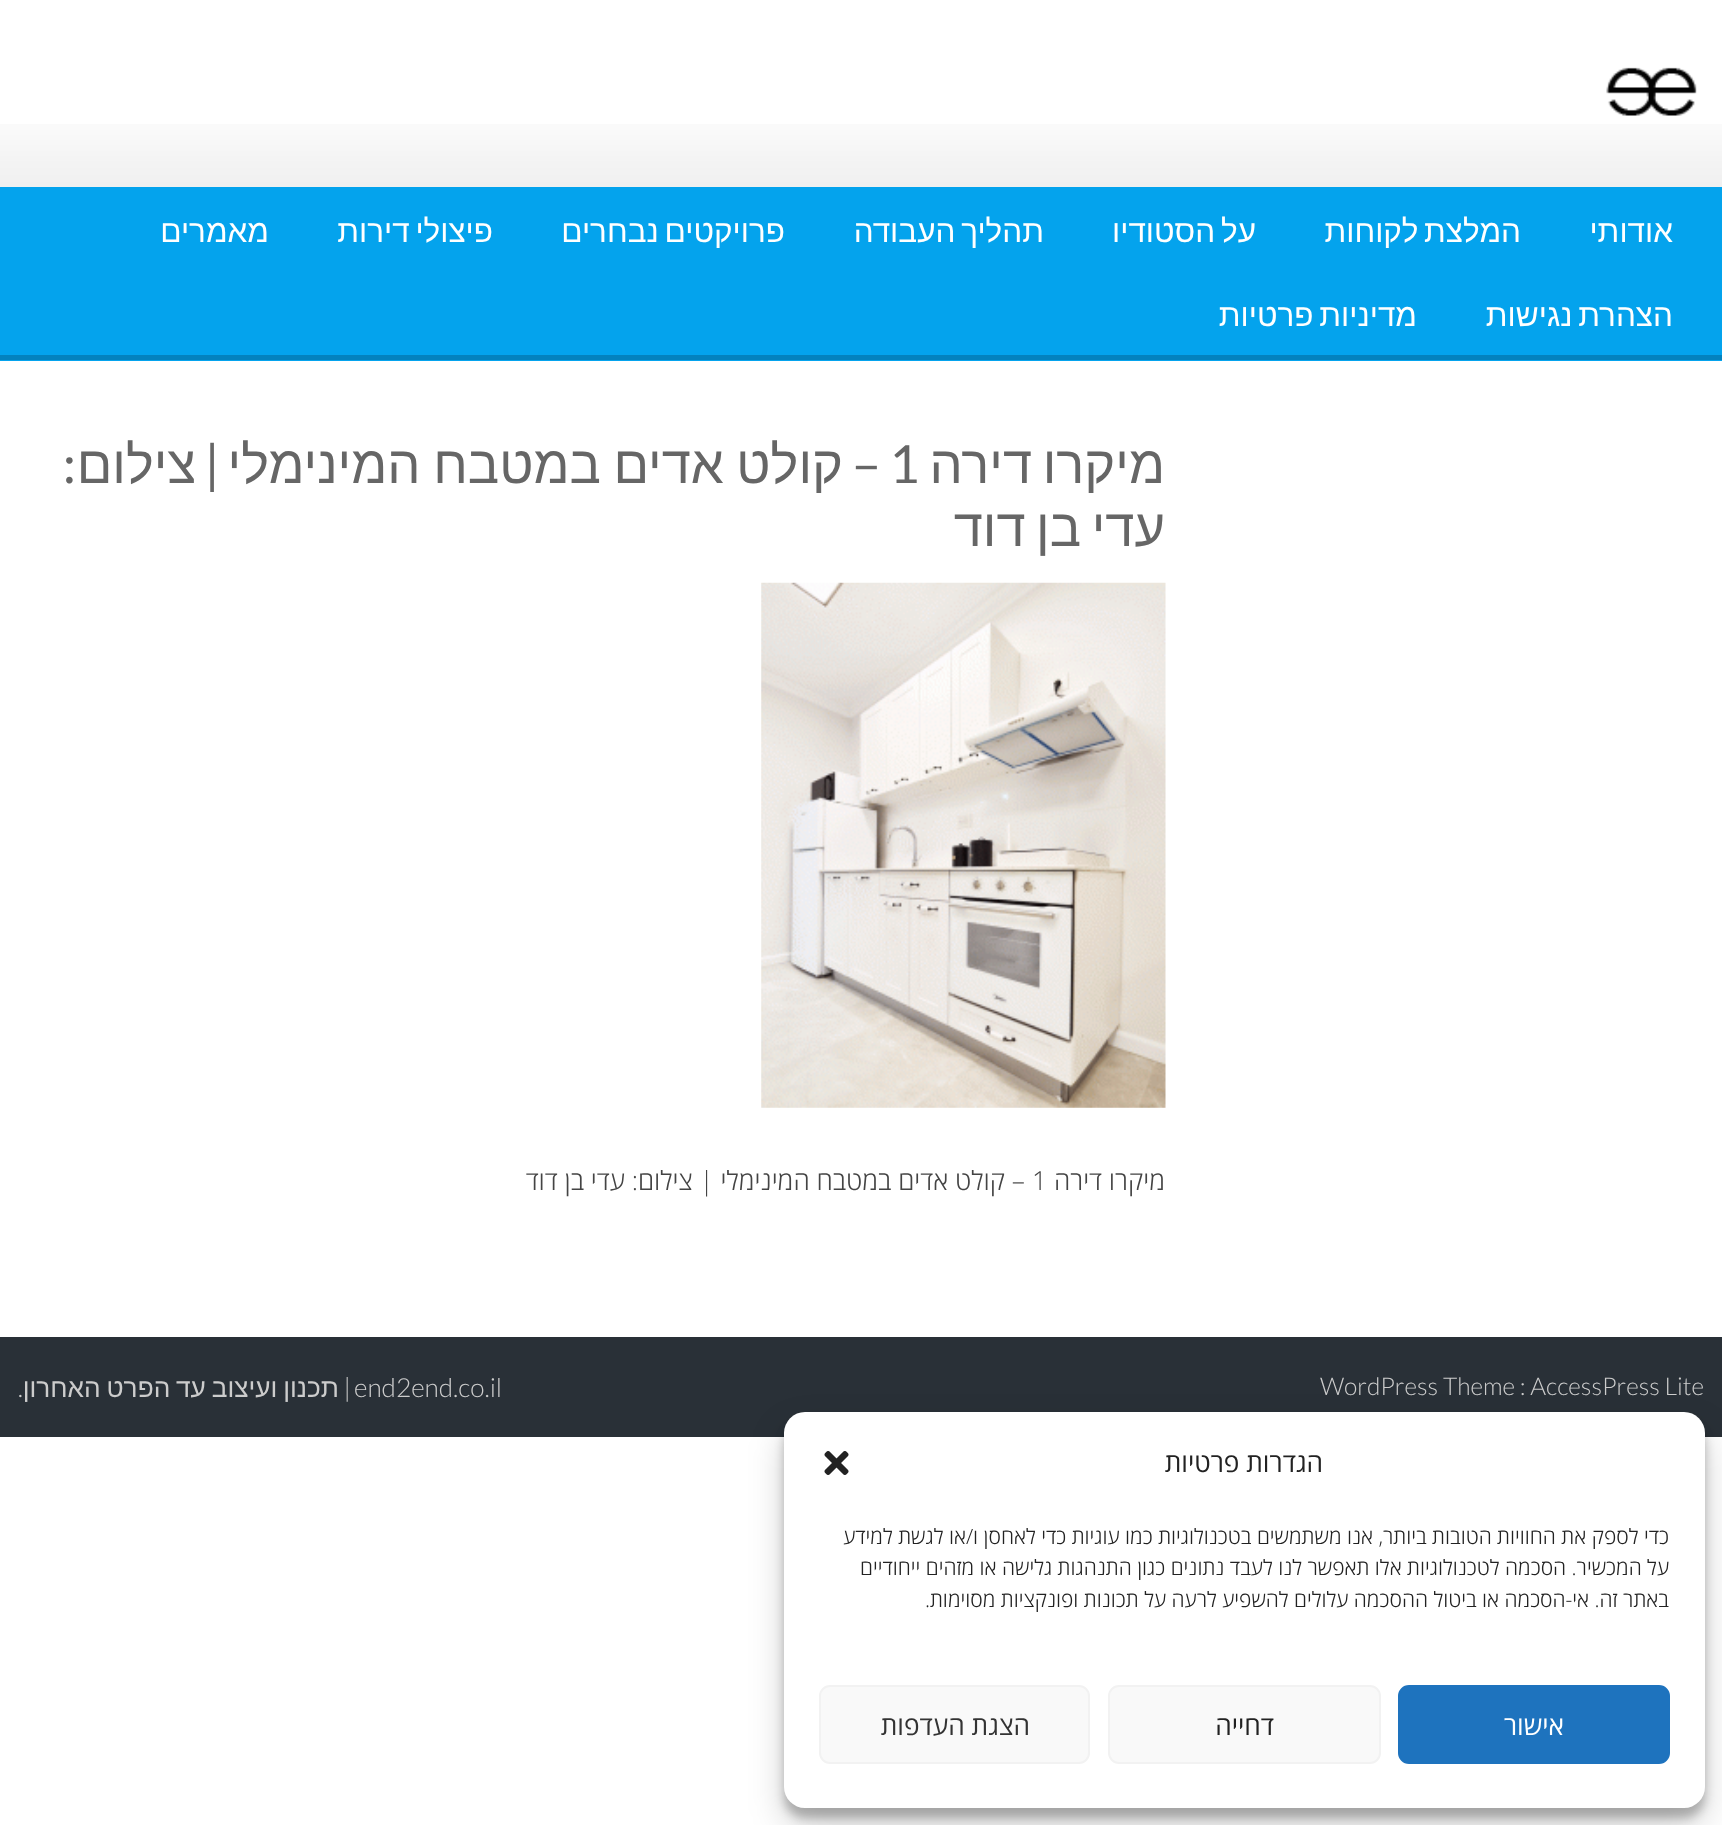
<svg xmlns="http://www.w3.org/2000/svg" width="1722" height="1825">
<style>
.a{font:31.5px Liberation Sans;direction:rtl;fill:#fff}
.b{font:52.5px Liberation Sans;direction:rtl;fill:#666}
.c{font:52.5px Lato;fill:#666}
.d{font:52.5px Lato;direction:rtl;fill:#666}
.e{font:300 26.25px Open Sans;direction:rtl;fill:#444}
.f{font:300 26.25px Open Sans;fill:#444}
.g{font:300 24.5px Lato;fill:#ccc}
.h{font:300 26.25px Lato;fill:#ccc}
.i{font:300 26.25px Lato;direction:rtl;fill:#ccc}
.j{font:26.25px Liberation Sans;direction:rtl;fill:#ccc}
.k{font:26.25px Open Sans;direction:rtl;fill:#222}
.l{font:300 21px Open Sans;direction:rtl;fill:#222}
.m{font:26.25px Open Sans;direction:rtl;fill:#fff}
.n{font:26.25px Open Sans;direction:rtl;fill:#333}
</style>
<rect width="100%" height="100%" fill="#fff"/>
<image href="1.png" x="0" y="124" width="1722" height="63"/>
<image href="2.png" x="1606" y="67" width="91" height="49"/>
<path fill="#04a3ed" d="M0 187h1722v174H0z"/>
<path fill="#0382be" d="M0 355h1722v5H0z"/>
<image href="3.png" x="761" y="582" width="405" height="526"/>
<path fill="#293037" d="M0 1337h1722v100H0z"/>
<rect fill="#0000003b" filter="blur(5px)" x="784" y="1423" width="921" height="395" rx="21"/>
<rect fill="#00000030" filter="blur(17.5px)" x="784" y="1430" width="921" height="395" rx="21"/>
<rect fill="#fff" x="784" y="1412" width="921" height="396" rx="21"/>
<image href="4.png" x="824" y="1451" width="25" height="24"/>
<rect fill="#1e73be" stroke="#1e73be" stroke-width="2" x="1399" y="1686" width="270" height="77" rx="10"/>
<rect fill="#f9f9f9" stroke="#f2f2f2" stroke-width="2" x="1109" y="1686" width="271" height="77" rx="10"/>
<rect fill="#f9f9f9" stroke="#f2f2f2" stroke-width="2" x="820" y="1686" width="269" height="77" rx="10"/>
<text class="a" x="1673" y="242">אודותי</text>
<text class="a" x="1521" y="242" word-spacing="-3">המלצת לקוחות</text>
<text class="a" x="1256" y="242" word-spacing="-3">על הסטודיו</text>
<text class="a" x="1044" y="242" word-spacing="-3">תהליך העבודה</text>
<text class="a" x="785" y="242" word-spacing="-3">פרויקטים נבחרים</text>
<text class="a" x="493" y="242" word-spacing="-3">פיצולי דירות</text>
<text class="a" x="269" y="242">מאמרים</text>
<text class="a" x="1673" y="326" word-spacing="-3">הצהרת נגישות</text>
<text class="a" x="1417" y="326" word-spacing="-3">מדיניות פרטיות</text>
<text class="b" x="1165" y="483" word-spacing="-4">מיקרו דירה</text>
<text class="c" x="889" y="483">1</text>
<text class="d" x="881" y="483">–</text>
<text class="b" x="843" y="483" word-spacing="-2">קולט אדים במטבח המינימלי</text>
<text class="d" x="220" y="483">|</text>
<text class="b" x="196" y="483">צילום</text>
<text class="d" x="76" y="483">:</text>
<text class="b" x="1165" y="546" word-spacing="-4">עדי בן דוד</text>
<text class="e" x="1165" y="1190">מיקרו דירה</text>
<text class="f" x="1032" y="1190">1</text>
<text class="e" x="1025" y="1190">– קולט אדים במטבח המינימלי | צילום: עדי בן דוד</text>
<text class="g" x="1320" y="1395">WordPress Theme : AccessPress Lite</text>
<text class="h" x="354" y="1397">end2end.co.il</text>
<text class="i" x="351" y="1397">|</text>
<text class="j" x="339" y="1397" word-spacing="-1.5">תכנון ועיצוב עד הפרט האחרון</text>
<text class="i" x="23" y="1397">.</text>
<text class="k" x="1323" y="1472">הגדרות פרטיות</text>
<text class="l" x="1669" y="1544">כדי לספק את החוויות הטובות ביותר, אנו משתמשים בטכנולוגיות כמו עוגיות כדי לאחסן ו/או לגשת למידע</text>
<text class="l" x="1669" y="1575">על המכשיר. הסכמה לטכנולוגיות אלו תאפשר לנו לעבד נתונים כגון התנהגות גלישה או מזהים ייחודיים</text>
<text class="l" x="1669" y="1607">באתר זה. אי-הסכמה או ביטול ההסכמה עלולים להשפיע לרעה על תכונות ופונקציות מסוימות.</text>
<text class="m" x="1564" y="1735">אישור</text>
<text class="k" x="1274" y="1735">דחייה</text>
<text class="n" x="1030" y="1735">הצגת העדפות</text>
</svg>
